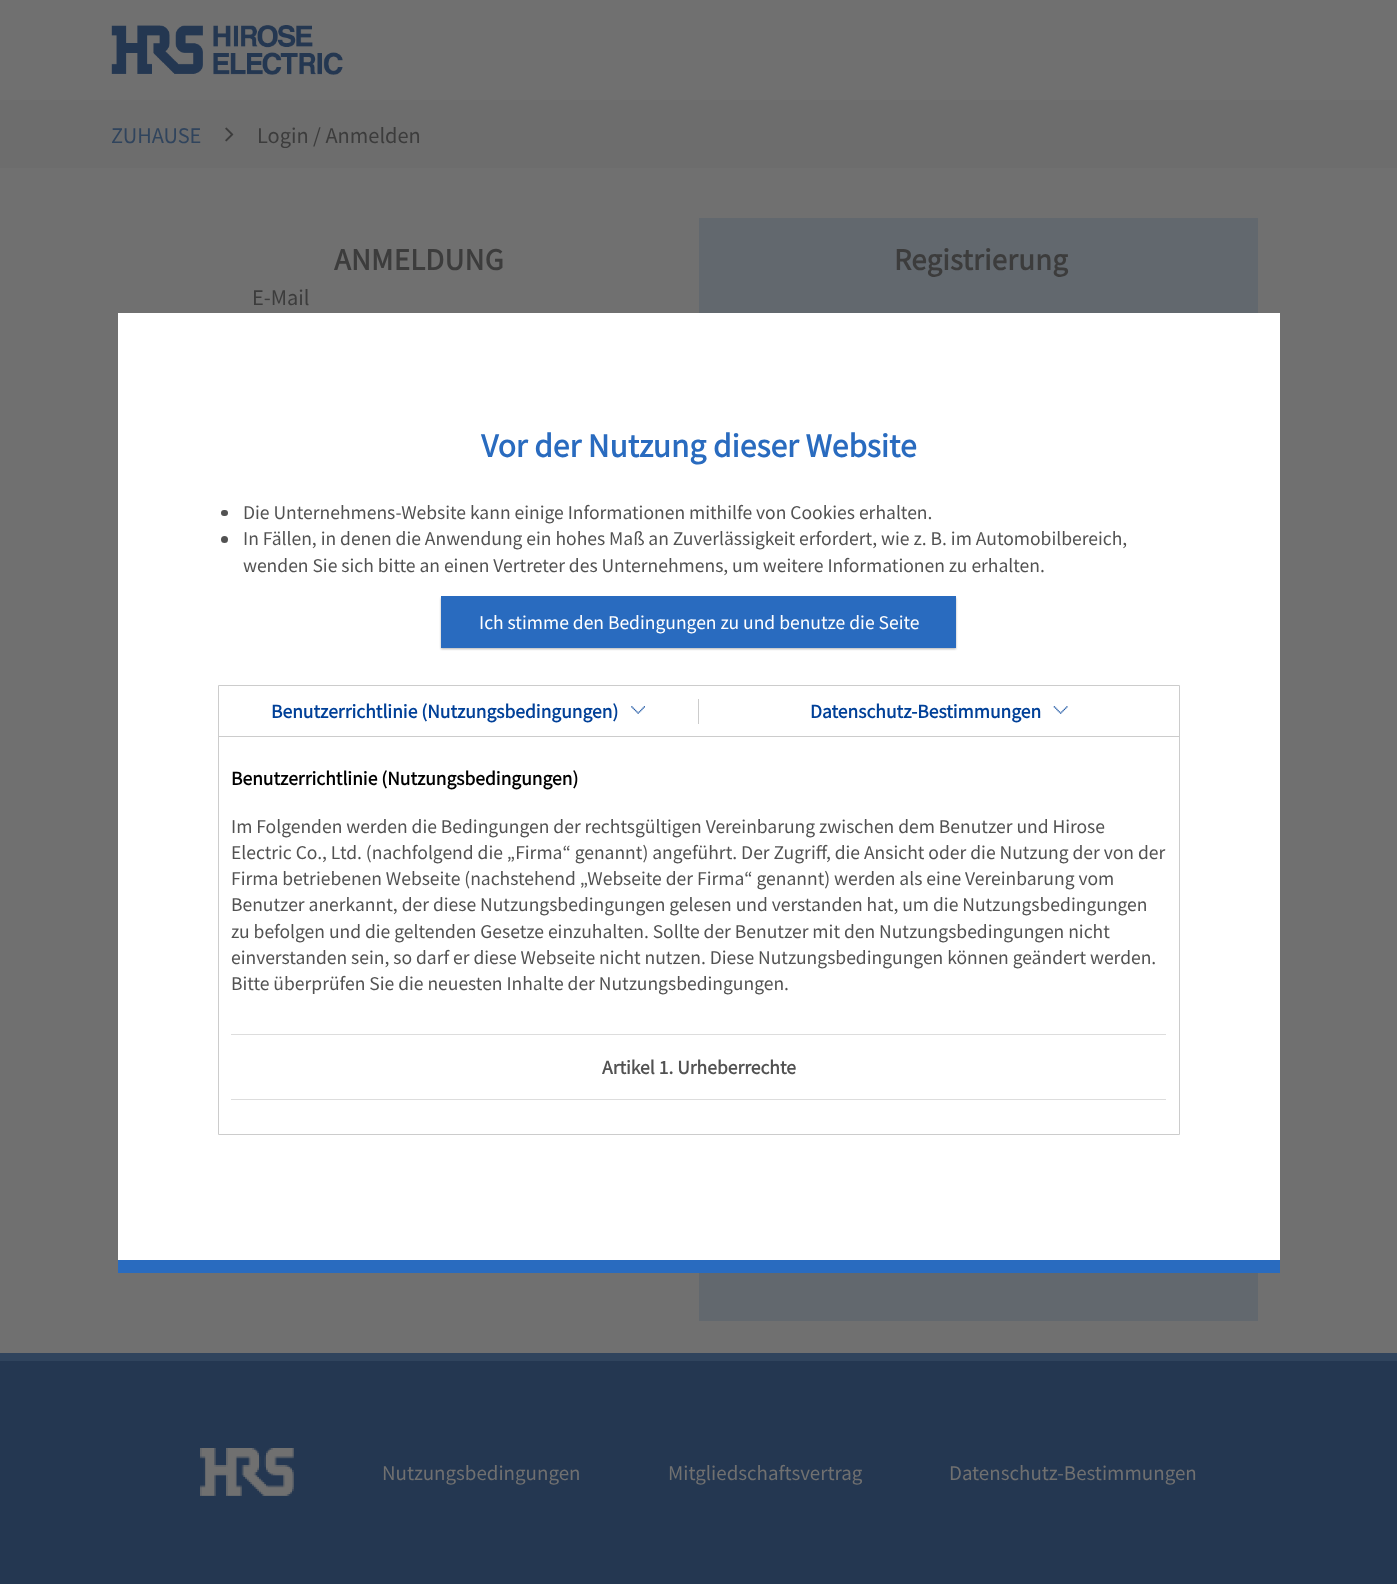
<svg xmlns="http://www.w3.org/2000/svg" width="1397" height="1584">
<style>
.a{font:100 20px Noto Sans JP;fill:#30445d}
.b{font:100 20px Noto Sans JP;fill:#3c3c3c}
.c{font:bold 27.5px Noto Sans JP;letter-spacing:0.25px;fill:#3c3c3c}
.d{font:100 18.75px Noto Sans JP;fill:#707070}
.e{font:bold 30px Noto Sans JP;fill:#296bbf}
.f{font:100 17.5px Noto Sans JP;fill:#525252}
.g{font:100 17.5px Noto Sans JP;fill:#fff}
.h{font:bold 17.5px Noto Sans JP;fill:#004098}
.i{font:bold 17.5px Noto Sans JP;fill:#000}
.j{font:bold 17.5px Noto Sans JP;fill:#525252}
</style>
<rect width="100%" height="100%" fill="#707070"/>
<image href="1.png" x="111" y="25" width="232" height="50"/>
<path fill="#6d6d6d" d="M0 100h1397v68H0z"/>
<image href="2.png" x="225" y="127" width="9" height="15"/>
<path fill="#62686e" d="M699 218h559v1103H699z"/>
<path fill="#243751" d="M0 1361h1397v223H0z"/>
<path fill="#30445d" d="M0 1353h1397v8H0z"/>
<image href="3.png" x="200" y="1448" width="94" height="48"/>
<path fill="#fff" d="M118 313h1162v947H118z"/>
<path fill="#296bbf" d="M118 1260h1162v13H118z"/>
<rect fill="#525252" x="221" y="510" width="7" height="6" rx="3"/>
<circle fill="#525252" cx="224.5" cy="539.5" r="3.5"/>
<path fill="#0000004d" filter="blur(1px)" d="M441 598h515v51H441z"/>
<path fill="#296bbf" d="M441 596h515v52H441z"/>
<path fill="none" stroke="#ccc" d="M218.5 685.5h961v449H218.5z"/>
<path fill="#ccc" d="M219 736h960v1H219z"/>
<path fill="#ccc" d="M698 699h1v25H698z"/>
<image href="4.png" x="631" y="706" width="14" height="8"/>
<image href="5.png" x="1053" y="706" width="15" height="8"/>
<path fill="#ddd" d="M231 1034h935v1H231z"/>
<path fill="#ddd" d="M231 1099h935v1H231z"/>
<text class="a" x="111" y="143">ZUHAUSE</text>
<text class="b" x="257" y="143">Login / Anmelden</text>
<text class="c" x="334" y="270">ANMELDUNG</text>
<text class="b" x="252" y="305">E-Mail</text>
<text class="c" x="894" y="270">Registrierung</text>
<text class="d" x="382" y="1480">Nutzungsbedingungen</text>
<text class="d" x="668" y="1480">Mitgliedschaftsvertrag</text>
<text class="d" x="949" y="1480">Datenschutz-Bestimmungen</text>
<text class="e" x="481" y="457">Vor der Nutzung dieser Website</text>
<text class="f" x="243" y="519">Die Unternehmens-Website kann einige Informationen mithilfe von Cookies erhalten.</text>
<text class="f" x="243" y="545">In Fällen, in denen die Anwendung ein hohes Maß an Zuverlässigkeit erfordert, wie z. B. im Automobilbereich,</text>
<text class="f" x="243" y="572">wenden Sie sich bitte an einen Vertreter des Unternehmens, um weitere Informationen zu erhalten.</text>
<text class="g" x="479" y="629">Ich stimme den Bedingungen zu und benutze die Seite</text>
<text class="h" x="271" y="718">Benutzerrichtlinie (Nutzungsbedingungen)</text>
<text class="h" x="810" y="718">Datenschutz-Bestimmungen</text>
<text class="i" x="231" y="785">Benutzerrichtlinie (Nutzungsbedingungen)</text>
<text class="f" x="231" y="833">Im Folgenden werden die Bedingungen der rechtsgültigen Vereinbarung zwischen dem Benutzer und Hirose</text>
<text class="f" x="231" y="859">Electric Co., Ltd. (nachfolgend die „Firma“ genannt) angeführt. Der Zugriff, die Ansicht oder die Nutzung der von der</text>
<text class="f" x="231" y="885">Firma betriebenen Webseite (nachstehend „Webseite der Firma“ genannt) werden als eine Vereinbarung vom</text>
<text class="f" x="231" y="911">Benutzer anerkannt, der diese Nutzungsbedingungen gelesen und verstanden hat, um die Nutzungsbedingungen</text>
<text class="f" x="231" y="938">zu befolgen und die geltenden Gesetze einzuhalten. Sollte der Benutzer mit den Nutzungsbedingungen nicht</text>
<text class="f" x="231" y="964">einverstanden sein, so darf er diese Webseite nicht nutzen. Diese Nutzungsbedingungen können geändert werden.</text>
<text class="f" x="231" y="990">Bitte überprüfen Sie die neuesten Inhalte der Nutzungsbedingungen.</text>
<text class="j" x="602" y="1074">Artikel 1. Urheberrechte</text>
</svg>
